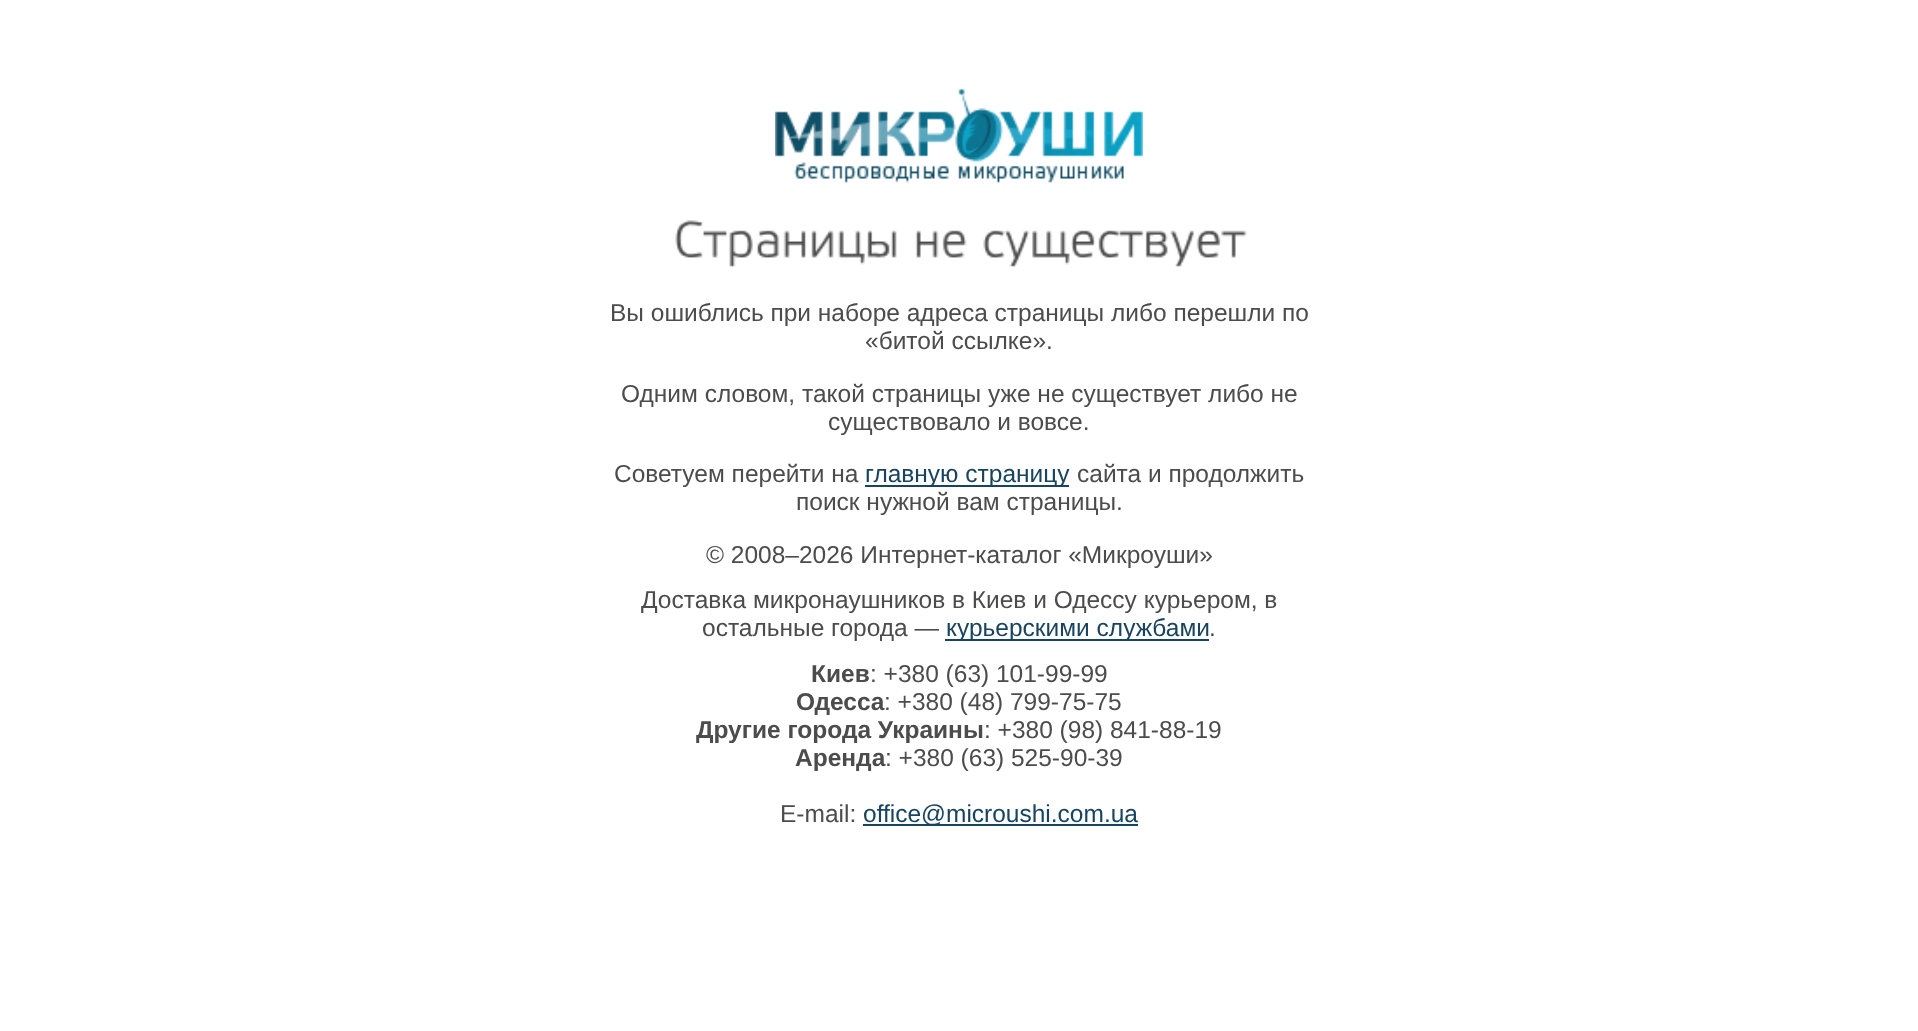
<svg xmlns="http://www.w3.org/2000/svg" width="1918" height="1031">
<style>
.a{font:24.5px Liberation Sans;fill:#4c4c4c}
.b{font:24.5px Liberation Sans;fill:#18445f}
.c{font:bold 24.5px Liberation Sans;fill:#4c4c4c}
</style>
<rect width="100%" height="100%" fill="#fff"/>
<image href="1.png" x="775" y="88" width="368" height="95"/>
<image href="2.png" x="675" y="220" width="222" height="47"/>
<image href="3.png" x="915" y="230" width="52" height="28"/>
<image href="4.png" x="983" y="230" width="264" height="37"/>
<path fill="#18445f" d="M865 485h204v2H865z"/>
<path fill="#18445f" d="M945 639h264v2H945z"/>
<path fill="#18445f" d="M863 824h275v2H863z"/>
<text class="a" x="610" y="321">Вы ошиблись при наборе адреса страницы либо перешли по</text>
<text class="a" x="865" y="349">«битой ссылке».</text>
<text class="a" x="621" y="402">Одним словом, такой страницы уже не существует либо не</text>
<text class="a" x="828" y="430">существовало и вовсе.</text>
<text class="a" x="614" y="482">Советуем перейти на</text>
<text class="b" x="865" y="482">главную страницу</text>
<text class="a" x="1077" y="482">сайта и продолжить</text>
<text class="a" x="796" y="510">поиск нужной вам страницы.</text>
<text class="a" x="706" y="563">© 2008–2026 Интернет-каталог «Микроуши»</text>
<text class="a" x="641" y="608">Доставка микронаушников в Киев и Одессу курьером, в</text>
<text class="a" x="702" y="636">остальные города —</text>
<text class="b" x="946" y="636">курьерскими службами</text>
<text class="a" x="1209" y="636">.</text>
<text class="c" x="811" y="682">Киев</text>
<text class="a" x="870" y="682">: +380 (63) 101-99-99</text>
<text class="c" x="796" y="710">Одесса</text>
<text class="a" x="884" y="710">: +380 (48) 799-75-75</text>
<text class="c" x="696" y="738">Другие города Украины</text>
<text class="a" x="984" y="738">: +380 (98) 841-88-19</text>
<text class="c" x="795" y="766">Аренда</text>
<text class="a" x="885" y="766">: +380 (63) 525-90-39</text>
<text class="a" x="780" y="822">E-mail:</text>
<text class="b" x="863" y="822">office@microushi.com.ua</text>
</svg>
